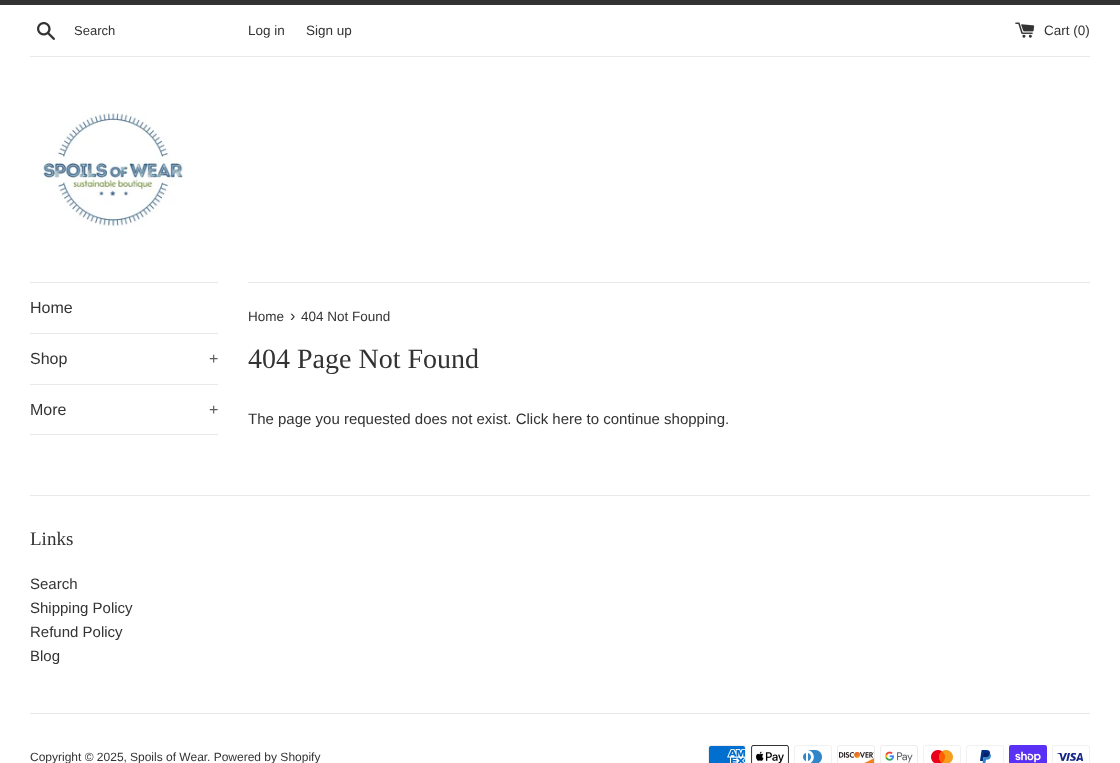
<svg xmlns="http://www.w3.org/2000/svg" width="1120" height="763">
<style>
.a{font:13px Liberation Sans;fill:#333}
.b{font:13.5px Liberation Sans;fill:#333}
.c{font:16px Liberation Sans;fill:#333}
.d{font:16px Liberation Sans;fill:#5c5c5c}
.e{font:28px Liberation Serif;fill:#333}
.f{font:15px Liberation Sans;fill:#333}
.g{font:19px Liberation Serif;fill:#333}
.h{font:12px Liberation Sans;fill:#333}
</style>
<rect width="100%" height="100%" fill="#fff"/>
<path fill="#333" d="M0 0h1120v5H0z"/>
<image href="1.png" x="37" y="22" width="18" height="18"/>
<image href="2.png" x="1015" y="22" width="20" height="16"/>
<path fill="#e8e8e8" d="M30 56h1060v1H30z"/>
<image href="3.png" x="41" y="113" width="143" height="114"/>
<path fill="#e8e8e8" d="M30 282h188v1H30z"/>
<path fill="#e8e8e8" d="M30 333h188v1H30z"/>
<path fill="#e8e8e8" d="M30 384h188v1H30z"/>
<path fill="#e8e8e8" d="M30 434h188v1H30z"/>
<path fill="#e8e8e8" d="M248 282h842v1H248z"/>
<path fill="#e8e8e8" d="M30 495h1060v1H30z"/>
<path fill="#e8e8e8" d="M30 713h1060v1H30z"/>
<image href="4.png" x="708" y="745" width="38" height="18"/>
<image href="5.png" x="751" y="745" width="38" height="18"/>
<image href="6.png" x="794" y="745" width="38" height="18"/>
<image href="7.png" x="837" y="745" width="38" height="18"/>
<image href="8.png" x="880" y="745" width="38" height="18"/>
<image href="9.png" x="923" y="745" width="38" height="18"/>
<image href="10.png" x="966" y="745" width="38" height="18"/>
<image href="11.png" x="1009" y="745" width="38" height="18"/>
<image href="12.png" x="1052" y="745" width="38" height="18"/>
<text class="a" x="74" y="35">Search</text>
<text class="b" x="248" y="35">Log in</text>
<text class="b" x="306" y="35">Sign up</text>
<text class="b" x="1044" y="35">Cart (0)</text>
<text class="c" x="30" y="313">Home</text>
<text class="c" x="30" y="364">Shop</text>
<text class="d" x="209" y="364">+</text>
<text class="c" x="30" y="415">More</text>
<text class="d" x="209" y="415">+</text>
<text class="b" x="248" y="321">Home</text>
<text class="c" x="290" y="321">›</text>
<text class="b" x="301" y="321">404 Not Found</text>
<text class="e" x="248" y="368">404 Page Not Found</text>
<text class="f" x="248" y="424">The page you requested does not exist. Click here to continue shopping.</text>
<text class="g" x="30" y="545">Links</text>
<text class="f" x="30" y="589">Search</text>
<text class="f" x="30" y="613">Shipping Policy</text>
<text class="f" x="30" y="637">Refund Policy</text>
<text class="f" x="30" y="661">Blog</text>
<text class="h" x="30" y="761">Copyright © 2025,</text>
<text class="h" x="130" y="761">Spoils of Wear</text>
<text class="h" x="207" y="761">. Powered by Shopify</text>
</svg>
